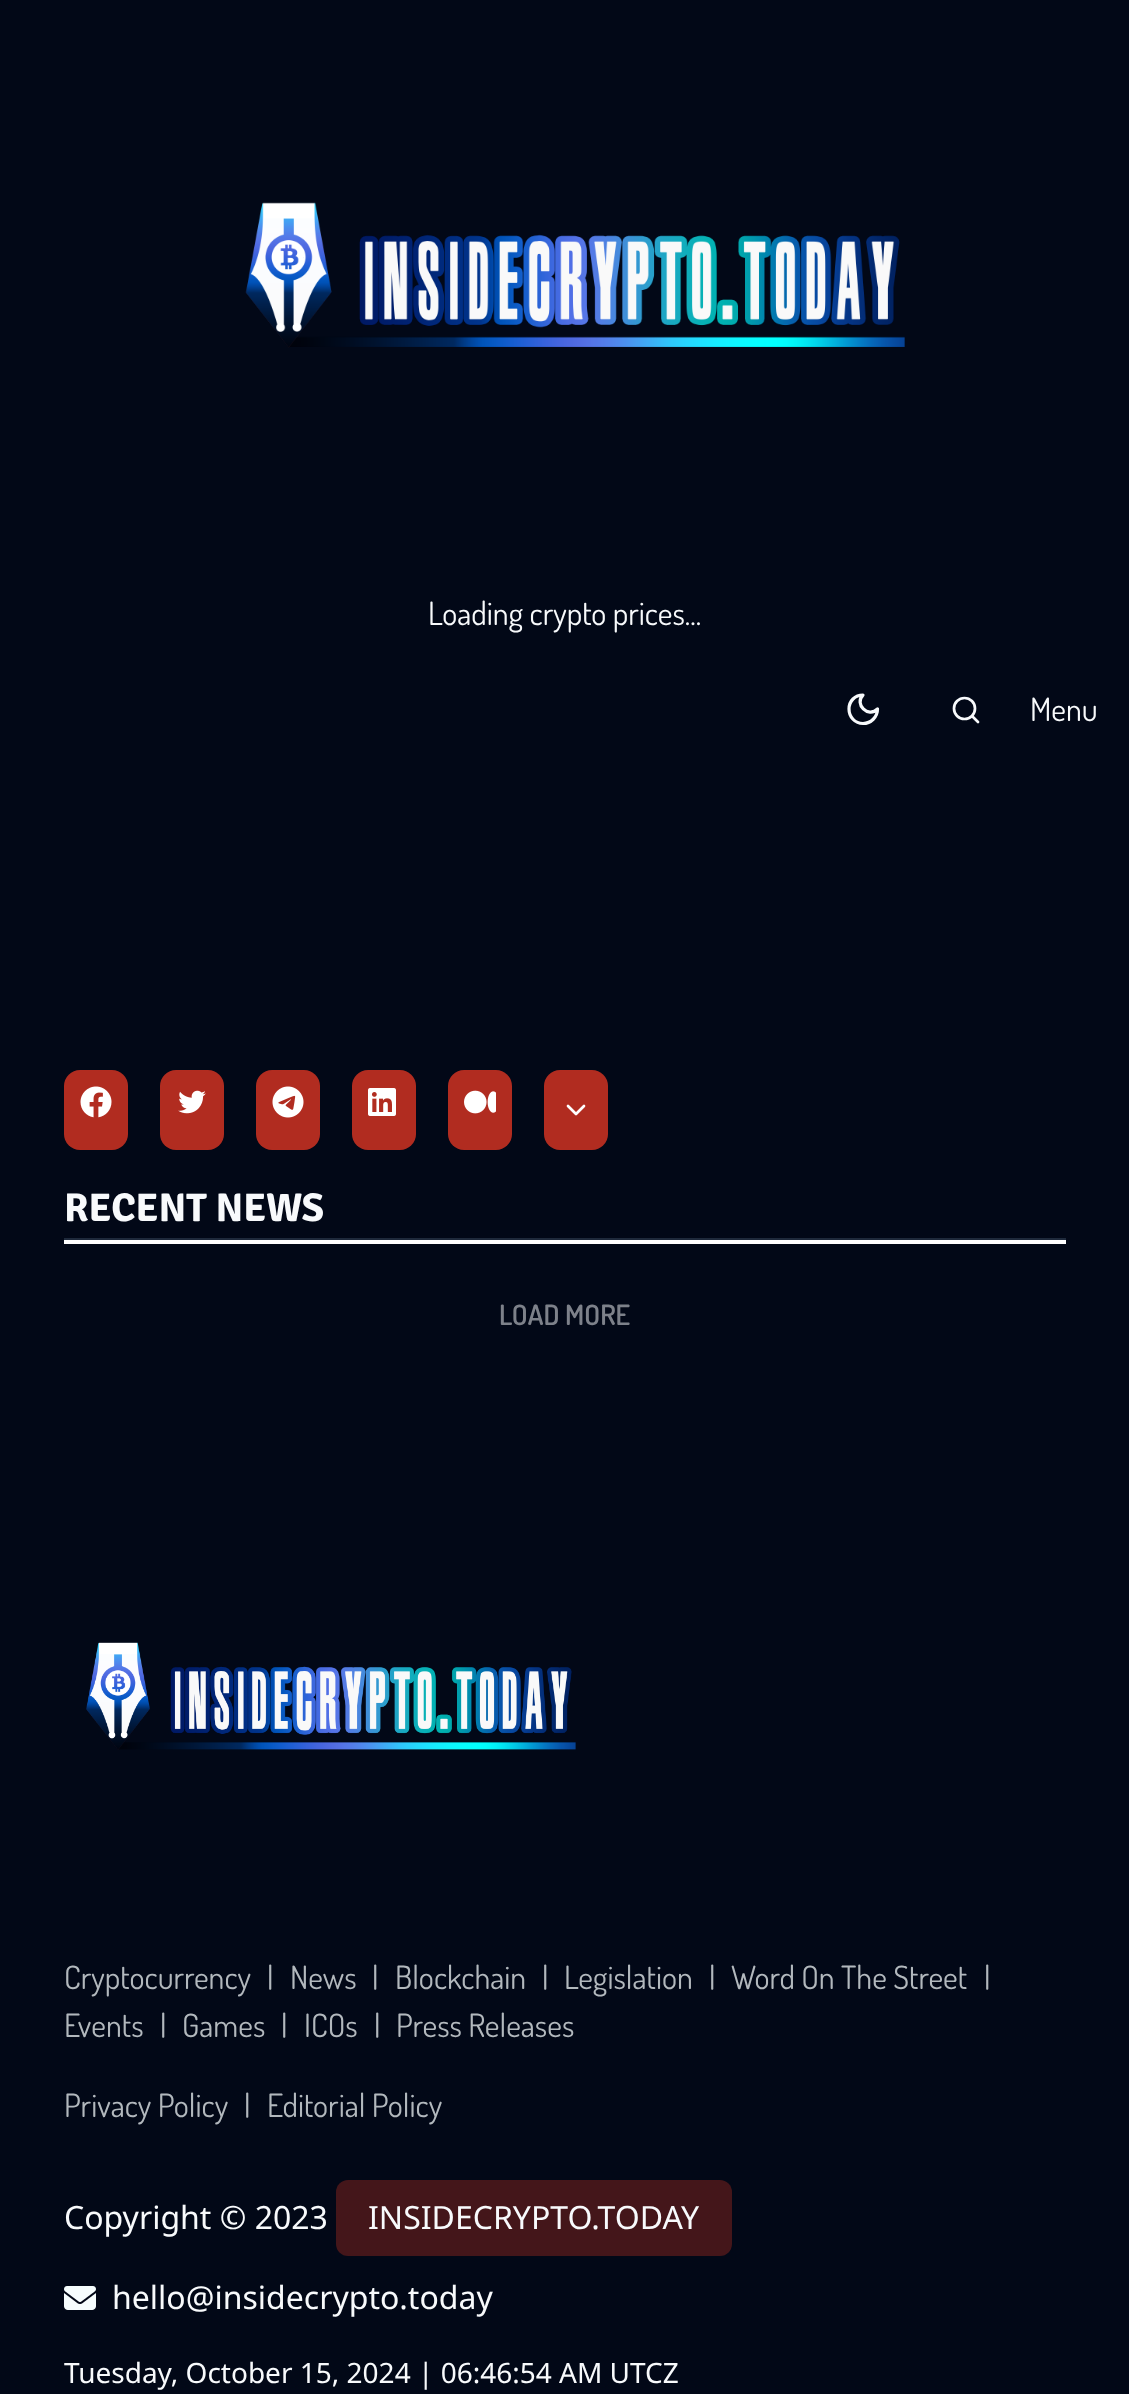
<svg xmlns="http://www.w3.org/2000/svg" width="1129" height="2394">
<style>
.a{font:32px Dosis;fill:#f8fafc}
.b{font:bold 40px Signika;fill:#f8fafc}
.c{font:600 28px Dosis;fill:#7d818a}
.d{font:32px Dosis;fill:#b2b8bd}
.e{font:32px Noto Sans;fill:#f8fafc}
.f{font:28px Noto Sans;fill:#f8fafc}
</style>
<rect width="100%" height="100%" fill="#020817"/>
<image href="1.png" x="245" y="202" width="660" height="146"/>
<path fill="none" stroke="#f8fafc" stroke-width="3.2" stroke-linecap="round" stroke-linejoin="round" d="M863 695c-9 9 5 23.5 14.5 14c0 8-6.5 14.5-14.5 14.5c-8 0-14-6.5-14-14.5c0-8 6-14 14-14z"/>
<circle fill="none" stroke="#f8fafc" stroke-width="2.7" cx="964.5" cy="708.5" r="10.5"/>
<path fill="none" stroke="#f8fafc" stroke-width="2.7" stroke-linecap="round" stroke-linejoin="round" d="M978 722l-5.5-5.5"/>
<rect fill="#b12c20" x="64" y="1070" width="64" height="80" rx="16"/>
<image href="2.png" x="80" y="1086" width="32" height="32"/>
<rect fill="#b12c20" x="160" y="1070" width="64" height="80" rx="16"/>
<image href="3.png" x="178" y="1090" width="28" height="24"/>
<rect fill="#b12c20" x="256" y="1070" width="64" height="80" rx="16"/>
<image href="4.png" x="272" y="1086" width="32" height="32"/>
<rect fill="#b12c20" x="352" y="1070" width="64" height="80" rx="16"/>
<image href="5.png" x="368" y="1088" width="28" height="28"/>
<rect fill="#b12c20" x="448" y="1070" width="64" height="80" rx="16"/>
<image href="6.png" x="464" y="1090" width="32" height="24"/>
<rect fill="#b12c20" x="544" y="1070" width="64" height="80" rx="16"/>
<path fill="none" stroke="#fff" stroke-width="2.7" stroke-linecap="round" stroke-linejoin="round" d="M568 1106l8 8l8-8"/>
<path fill="#fff" d="M64 1240h1002v4H64z"/>
<path fill="#1e293b" d="M64 1238h1002v2H64z"/>
<image href="7.png" x="86" y="1642" width="490" height="108"/>
<rect fill="#44161a" x="336" y="2180" width="396" height="76" rx="12"/>
<image href="8.png" x="64" y="2286" width="32" height="24"/>
<text class="a" x="428" y="625">Loading crypto prices...</text>
<text class="a" x="1030" y="721">Menu</text>
<text class="b" x="64" y="1221">RECENT NEWS</text>
<text class="c" x="499" y="1325">LOAD MORE</text>
<text class="d" x="64" y="1989">Cryptocurrency</text>
<text class="d" x="267" y="1989">|</text>
<text class="d" x="290" y="1989">News</text>
<text class="d" x="372" y="1989">|</text>
<text class="d" x="395" y="1989">Blockchain</text>
<text class="d" x="542" y="1989">|</text>
<text class="d" x="564" y="1989">Legislation</text>
<text class="d" x="709" y="1989">|</text>
<text class="d" x="731" y="1989">Word On The Street</text>
<text class="d" x="984" y="1989">|</text>
<text class="d" x="64" y="2037">Events</text>
<text class="d" x="160" y="2037">|</text>
<text class="d" x="182" y="2037">Games</text>
<text class="d" x="281" y="2037">|</text>
<text class="d" x="304" y="2037">ICOs</text>
<text class="d" x="374" y="2037">|</text>
<text class="d" x="396" y="2037">Press Releases</text>
<text class="d" x="64" y="2117">Privacy Policy</text>
<text class="d" x="244" y="2117">|</text>
<text class="d" x="267" y="2117">Editorial Policy</text>
<text class="e" x="64" y="2229">Copyright © 2023</text>
<text class="e" x="368" y="2229">INSIDECRYPTO.TODAY</text>
<text class="e" x="112" y="2309">hello@insidecrypto.today</text>
<text class="f" x="64" y="2383">Tuesday, October 15, 2024 | 06:46:54 AM UTCZ</text>
</svg>
